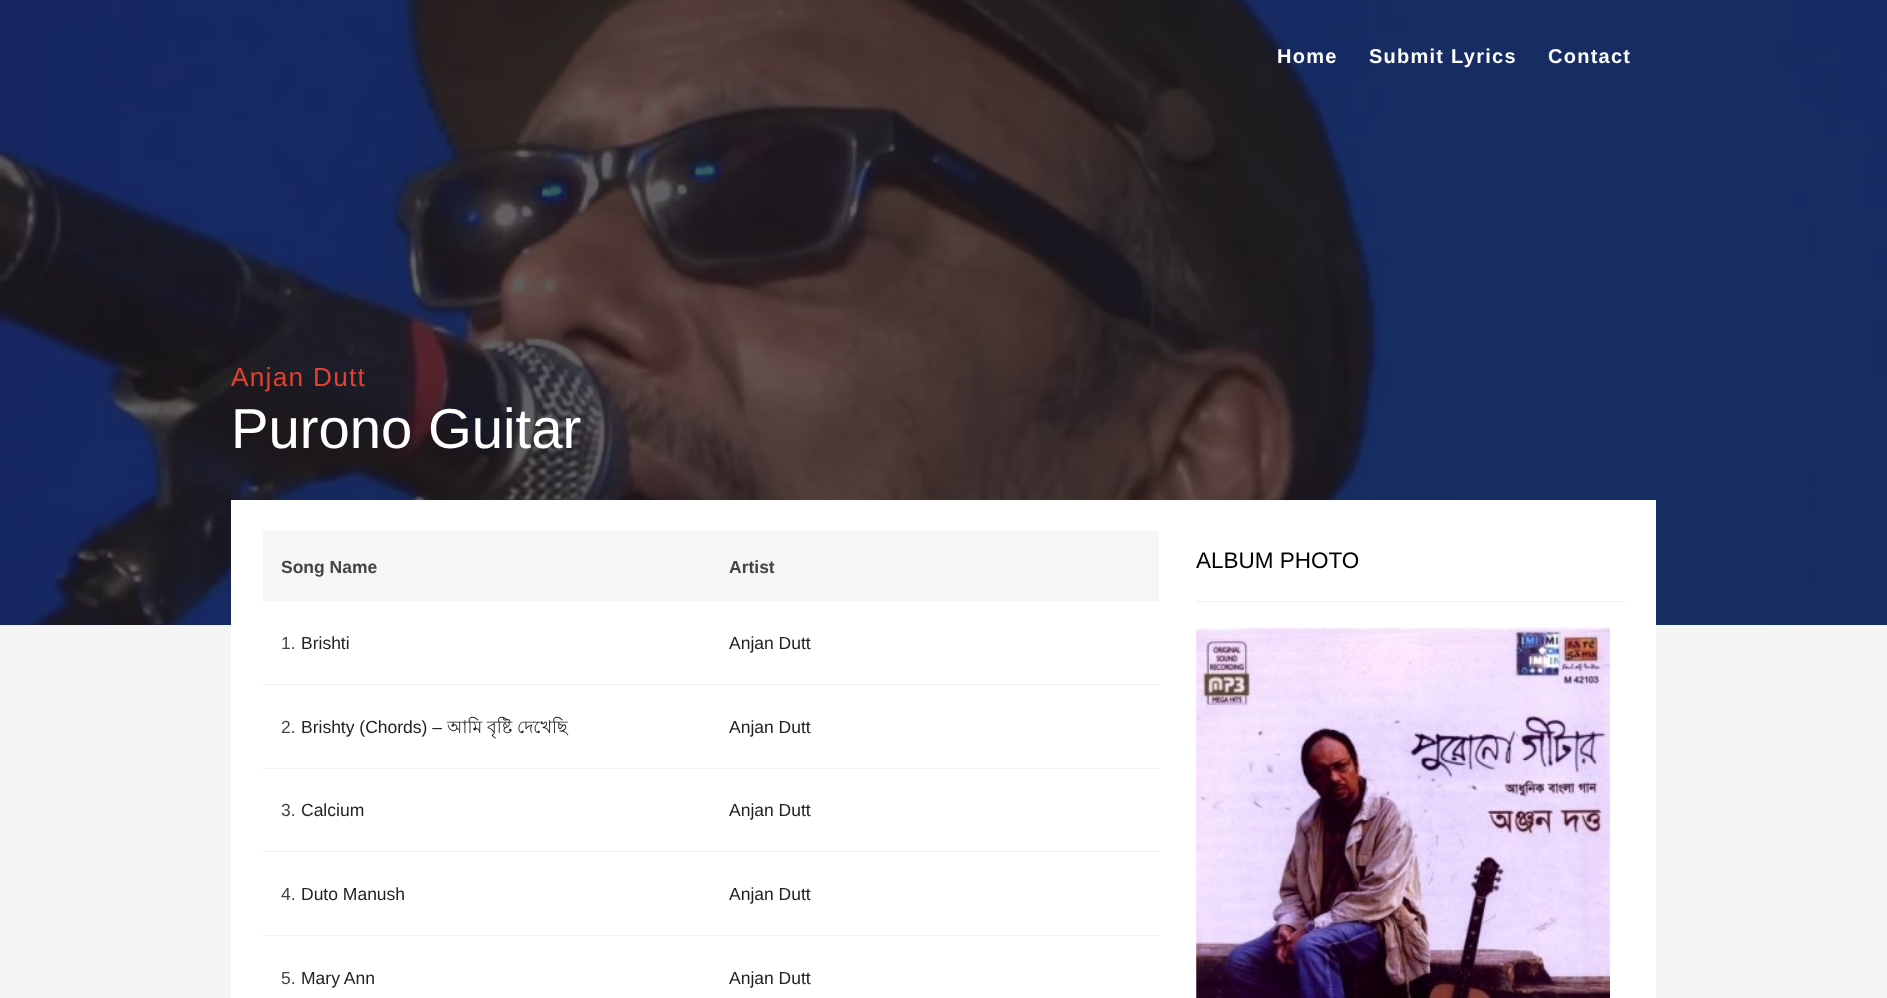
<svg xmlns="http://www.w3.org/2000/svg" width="1887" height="998">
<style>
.a{font:bold 20px Liberation Sans;letter-spacing:1.25px;fill:#fff}
.b{font:26.25px Liberation Sans;letter-spacing:1.25px;fill:#e4422e}
.c{font:56.25px Liberation Sans;fill:#fff}
.d{font:bold 17.5px Liberation Sans;fill:#444}
.e{font:17.5px Liberation Sans;fill:#444}
.f{font:17.5px Liberation Sans;fill:#222}
.g{font:17.5px Lohit Bengali;fill:#222}
.h{font:22.5px Liberation Sans;fill:#000}
</style>
<rect width="100%" height="100%" fill="#f5f5f5"/>
<image href="1.png" x="0" y="0" width="1887" height="625"/>
<path fill="#fff" d="M231 500h1425v498H231z"/>
<path fill="#f6f6f6" d="M263 531h896v70H263z"/>
<path fill="#f0f0f0" d="M263 684h896v1H263z"/>
<path fill="#f0f0f0" d="M263 768h896v1H263z"/>
<path fill="#f0f0f0" d="M263 851h896v1H263z"/>
<path fill="#f0f0f0" d="M263 935h896v1H263z"/>
<path fill="#f0f0f0" d="M1196 601h429v1H1196z"/>
<image href="2.png" x="1196" y="627" width="414" height="371"/>
<text class="a" x="1277" y="63">Home</text>
<text class="a" x="1369" y="63">Submit Lyrics</text>
<text class="a" x="1548" y="63">Contact</text>
<text class="b" x="231" y="386">Anjan Dutt</text>
<text class="c" x="231" y="448">Purono Guitar</text>
<text class="d" x="281" y="573">Song Name</text>
<text class="d" x="729" y="573">Artist</text>
<text class="e" x="281" y="649">1.</text>
<text class="f" x="301" y="649">Brishti</text>
<text class="f" x="729" y="649">Anjan Dutt</text>
<text class="e" x="281" y="733">2.</text>
<text class="f" x="301" y="733">Brishty (Chords) –</text>
<text class="g" x="447" y="733">আমি বৃষ্টি দেখেছি</text>
<text class="f" x="729" y="733">Anjan Dutt</text>
<text class="e" x="281" y="816">3.</text>
<text class="f" x="301" y="816">Calcium</text>
<text class="f" x="729" y="816">Anjan Dutt</text>
<text class="e" x="281" y="900">4.</text>
<text class="f" x="301" y="900">Duto Manush</text>
<text class="f" x="729" y="900">Anjan Dutt</text>
<text class="e" x="281" y="984">5.</text>
<text class="f" x="301" y="984">Mary Ann</text>
<text class="f" x="729" y="984">Anjan Dutt</text>
<text class="h" x="1196" y="568">ALBUM PHOTO</text>
</svg>
